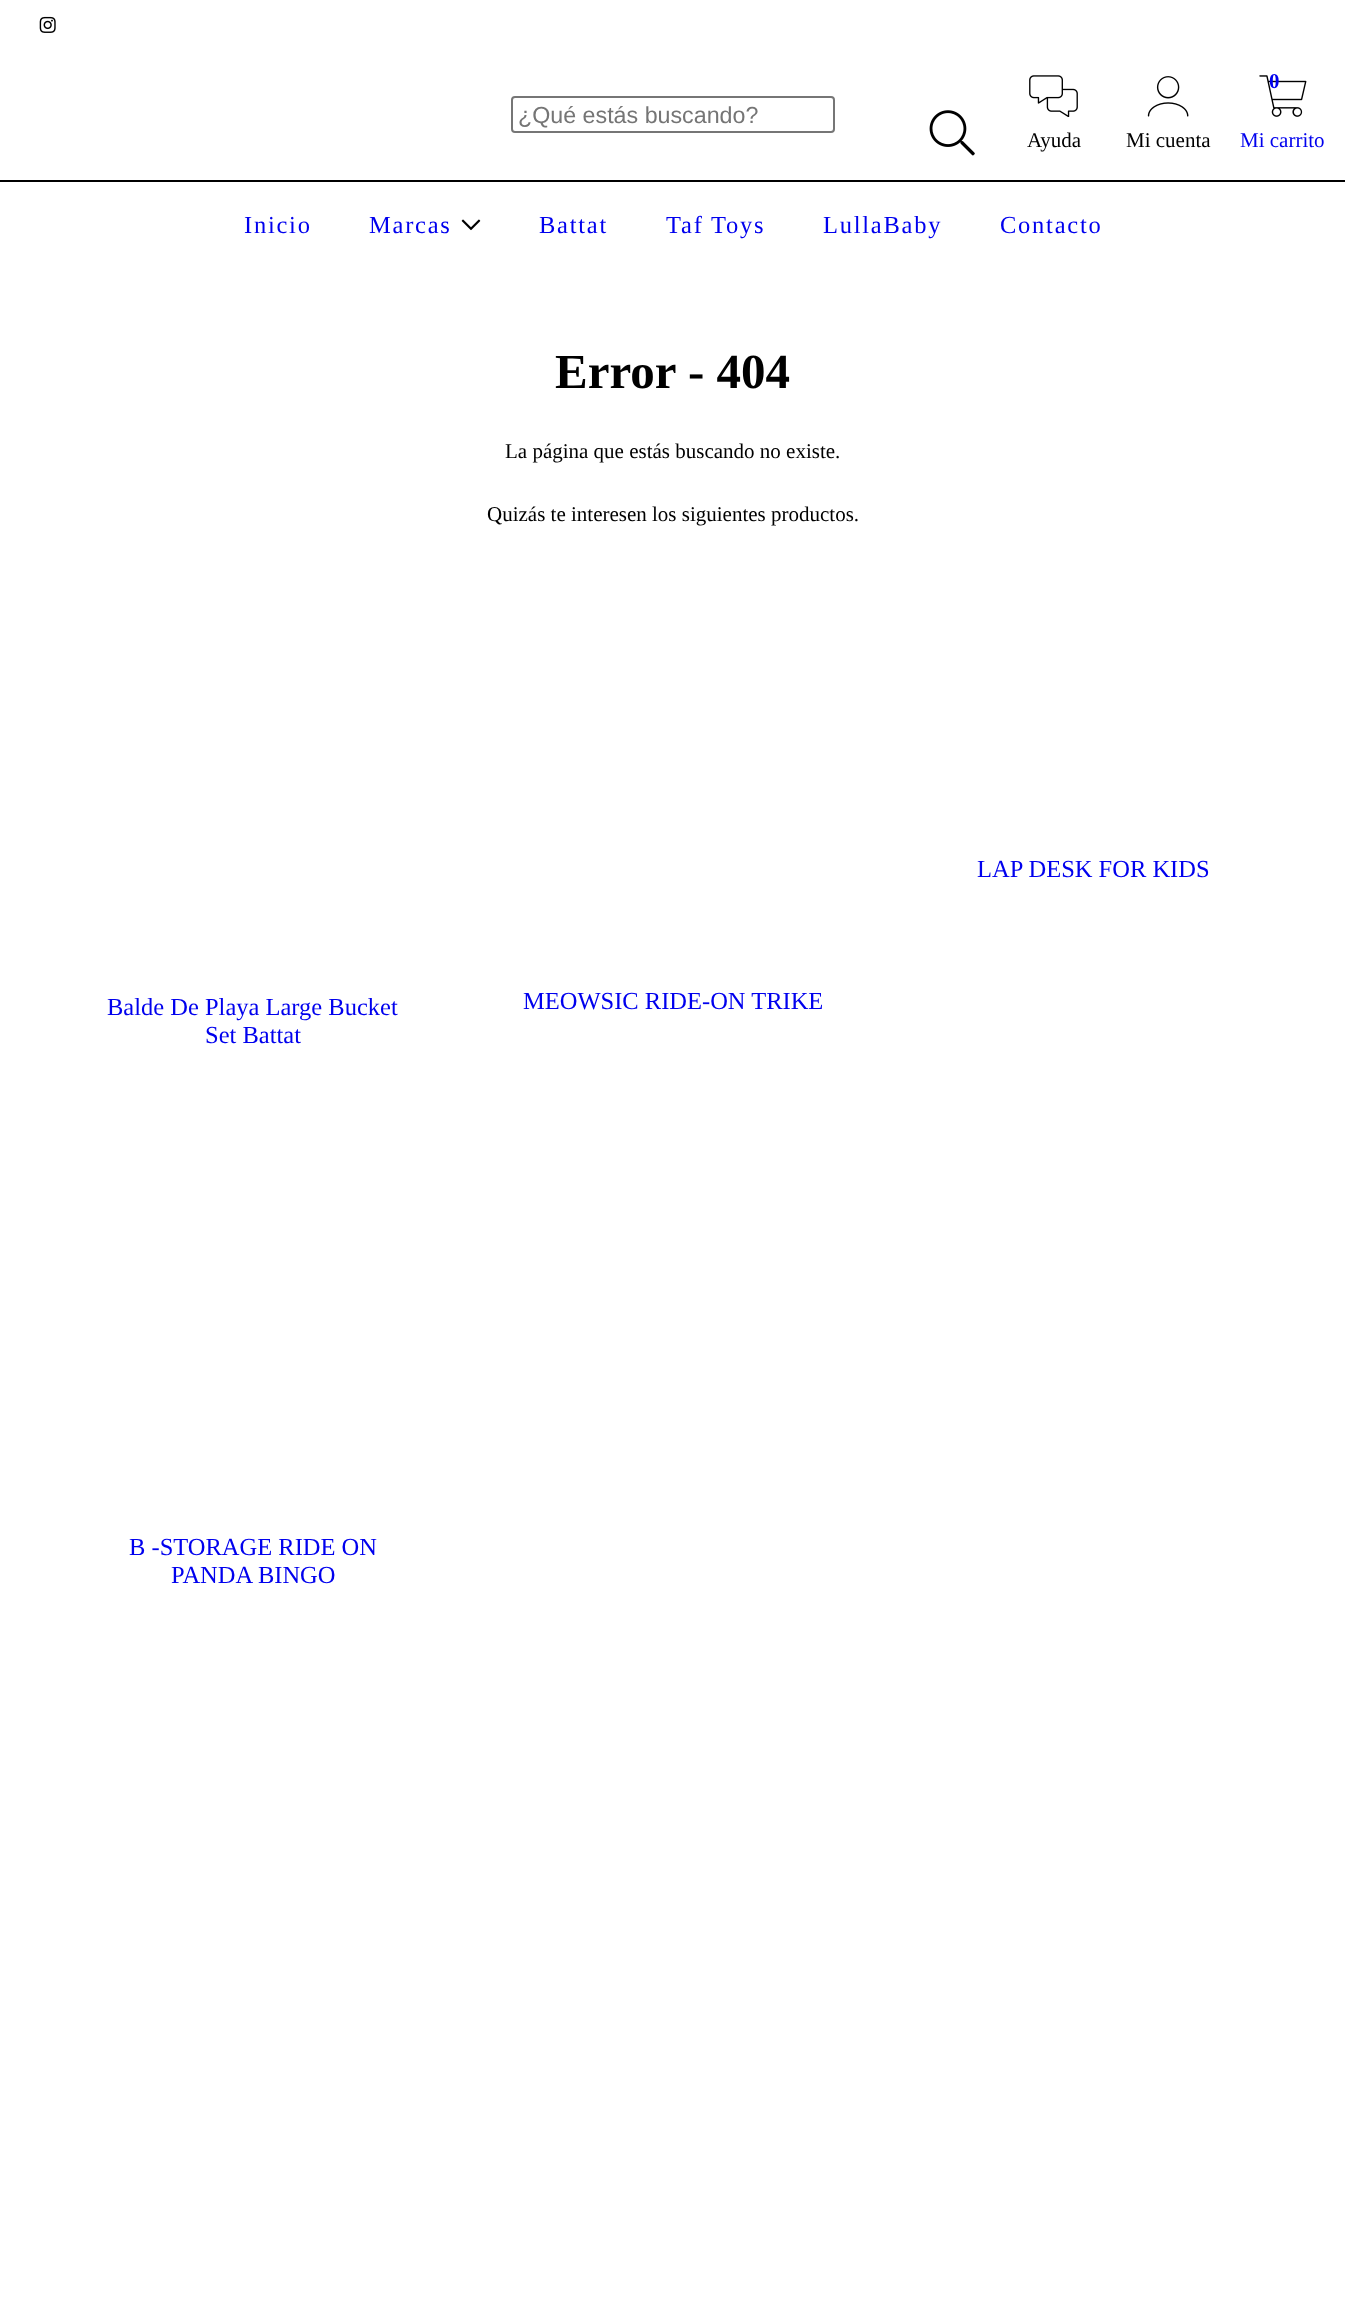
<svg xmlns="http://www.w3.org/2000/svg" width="1345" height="2311">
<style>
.a{font:23.25px Liberation Sans;fill:#757575}
.b{font:21px Liberation Serif;fill:#000}
.c{font:bold 21px Liberation Serif;fill:#00e}
.d{font:21px Liberation Serif;fill:#00e}
.e{font:24.5px Liberation Serif;letter-spacing:1.75px;fill:#00e}
.f{font:bold 49px Liberation Serif;fill:#000}
.g{font:24.5px Liberation Serif;fill:#00e}
</style>
<rect width="100%" height="100%" fill="#fff"/>
<image href="1.png" x="39" y="16" width="17" height="17"/>
<rect fill="none" stroke="#767676" stroke-width="2" x="512" y="97" width="322" height="35" rx="3"/>
<image href="2.png" x="929" y="110" width="46" height="46"/>
<image href="3.png" x="1029" y="75" width="49" height="42"/>
<image href="4.png" x="1147" y="76" width="42" height="41"/>
<image href="5.png" x="1259" y="75" width="48" height="42"/>
<path fill="#000" d="M0 180h1345v2H0z"/>
<image href="6.png" x="461" y="219" width="20" height="12"/>
<text class="a" x="518" y="123">¿Qué estás buscando?</text>
<text class="b" x="1027" y="147">Ayuda</text>
<text class="b" x="1126" y="147">Mi cuenta</text>
<text class="c" x="1269" y="88">0</text>
<text class="d" x="1240" y="147">Mi carrito</text>
<text class="e" x="244" y="233">Inicio</text>
<text class="e" x="369" y="233">Marcas</text>
<text class="e" x="539" y="233">Battat</text>
<text class="e" x="666" y="233">Taf Toys</text>
<text class="e" x="823" y="233">LullaBaby</text>
<text class="e" x="1000" y="233">Contacto</text>
<text class="f" x="555" y="388">Error - 404</text>
<text class="b" x="505" y="458">La página que estás buscando no existe.</text>
<text class="b" x="487" y="521">Quizás te interesen los siguientes productos.</text>
<text class="g" x="977" y="877">LAP DESK FOR KIDS</text>
<text class="g" x="107" y="1015">Balde De Playa Large Bucket</text>
<text class="g" x="205" y="1043">Set Battat</text>
<text class="g" x="523" y="1009">MEOWSIC RIDE-ON TRIKE</text>
<text class="g" x="129" y="1555">B -STORAGE RIDE ON</text>
<text class="g" x="171" y="1583">PANDA BINGO</text>
</svg>
